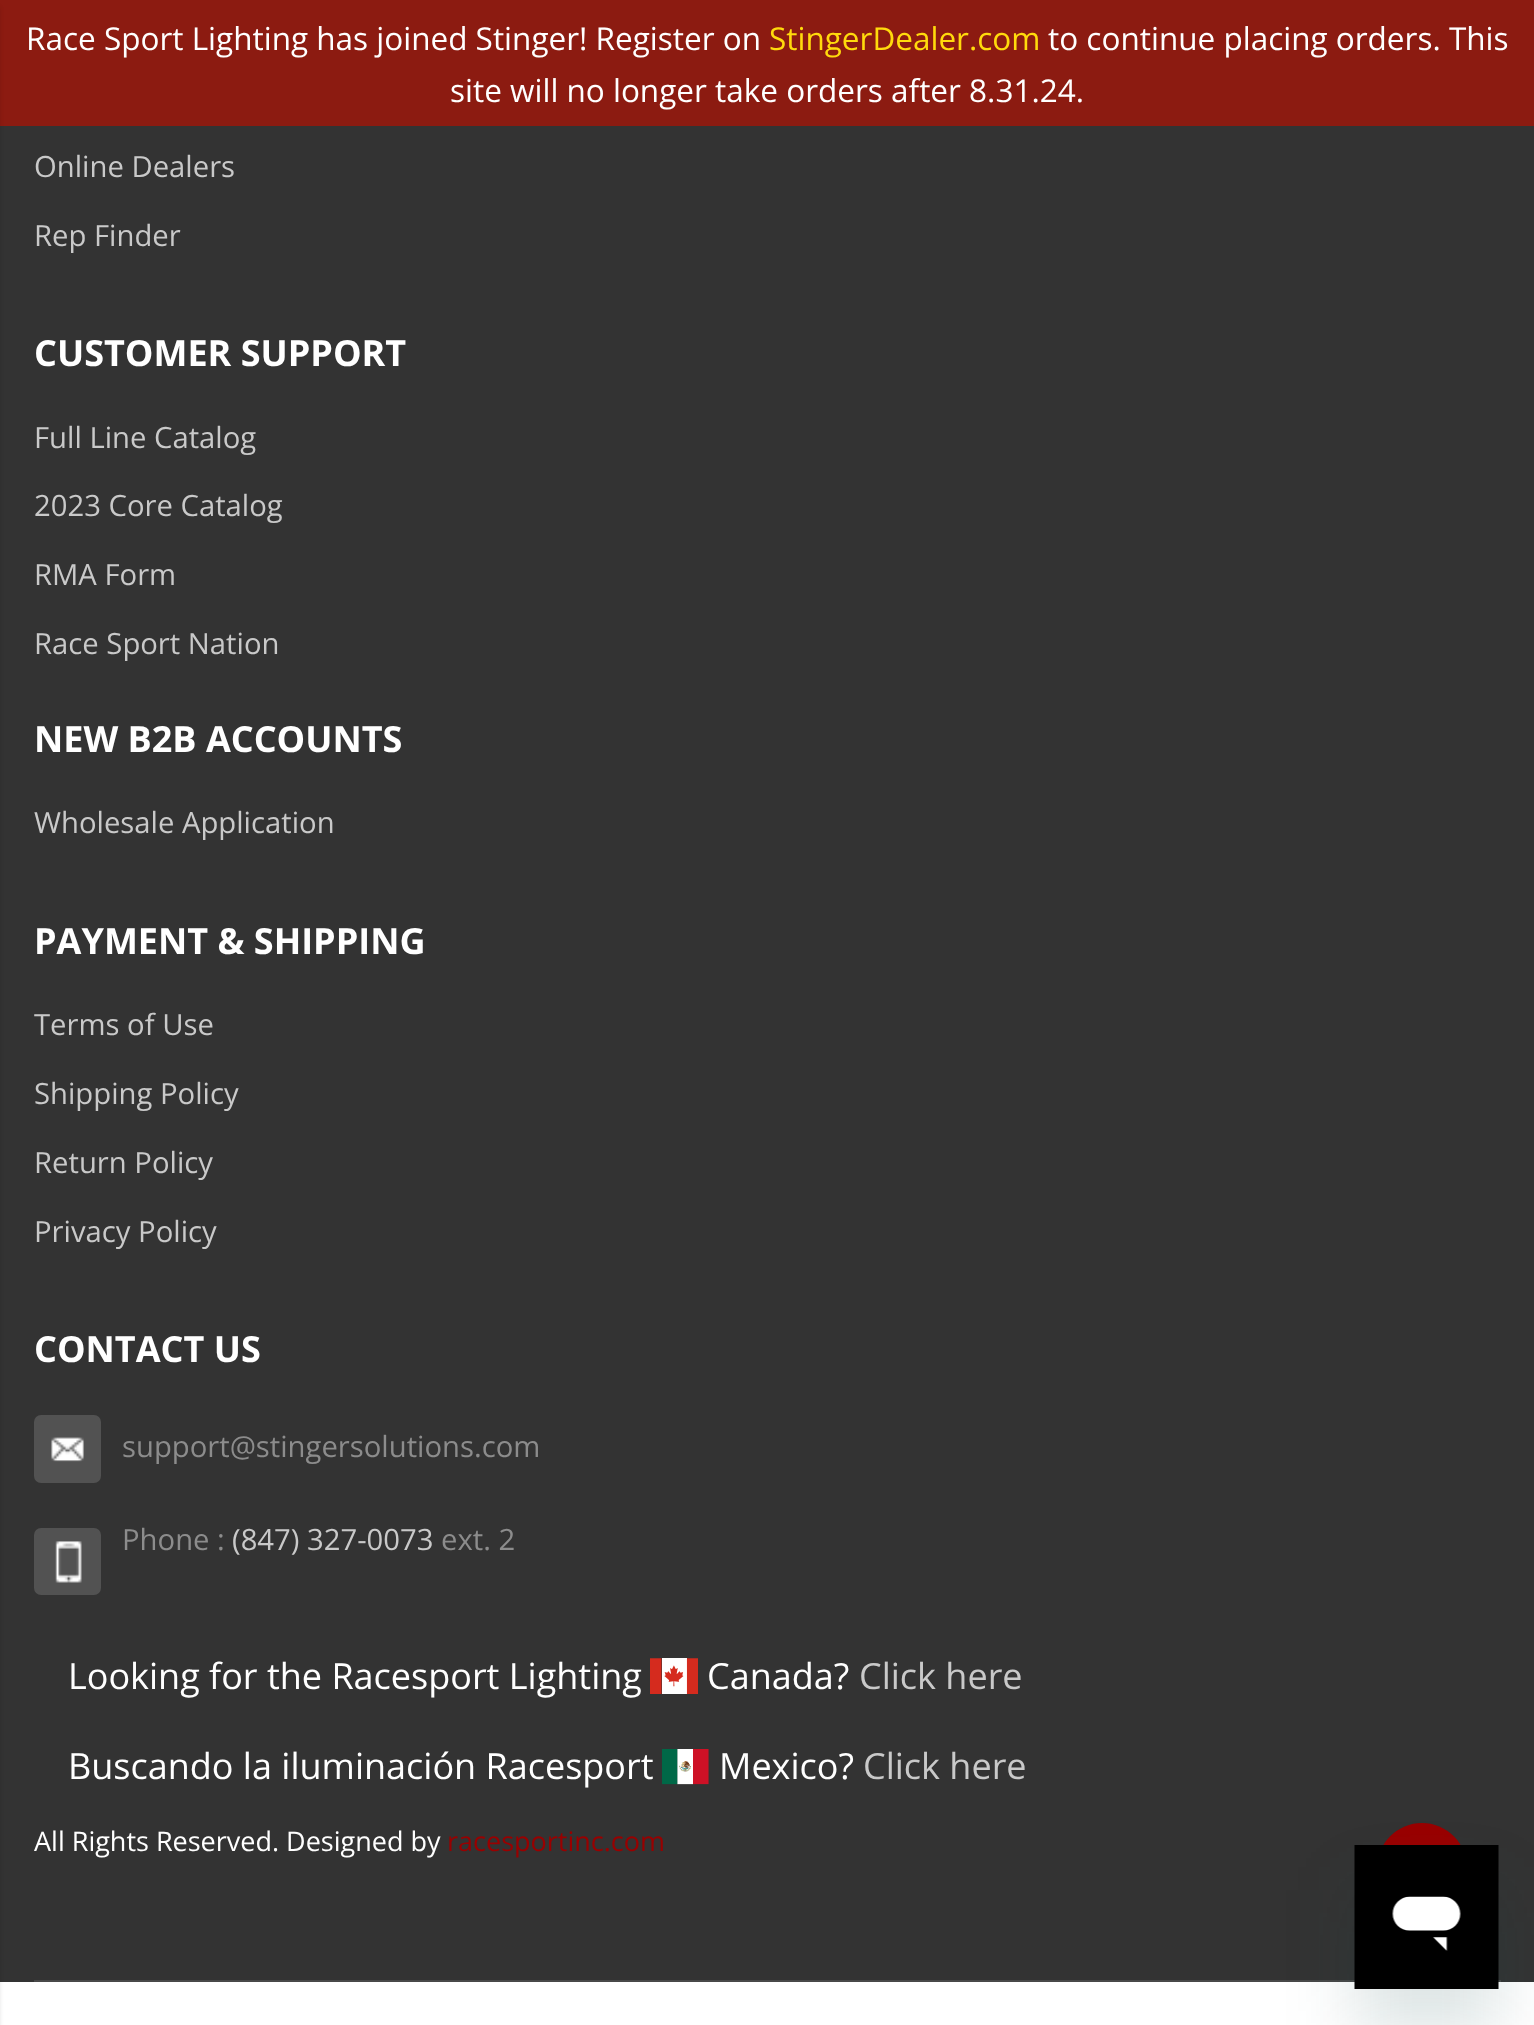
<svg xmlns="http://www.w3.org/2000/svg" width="1534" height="2025">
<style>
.a{font:31.5px Open Sans;fill:#fff}
.b{font:31.5px Open Sans;fill:#ffda0c}
.c{font:29.25px Open Sans;fill:#c9c9c9}
.d{font:bold 36px Open Sans;fill:#fff}
.e{font:29.25px Open Sans;fill:#8c8c8c}
.f{font:36px Open Sans;fill:#fff}
.g{font:36px Open Sans;fill:#c9c9c9}
.h{font:27px Open Sans;fill:#fff}
.i{font:27px Open Sans;fill:#900}
</style>
<rect width="100%" height="100%" fill="#fff"/>
<path fill="#8c1b11" d="M0 0h1534v126H0z"/>
<path fill="#333" d="M0 126h1534v1856H0z"/>
<path fill="#0000001a" filter="blur(2px)" d="M-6 7h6v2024H-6z"/>
<path fill="#484848" d="M34 1980h1467v2H34z"/>
<rect fill="#525252" x="34" y="1415" width="67" height="68" rx="7"/>
<image href="1.png" x="51" y="1437" width="33" height="25"/>
<rect fill="#525252" x="34" y="1528" width="67" height="67" rx="7"/>
<image href="2.png" x="55" y="1541" width="27" height="42"/>
<image href="3.png" x="650" y="1658" width="48" height="36"/>
<image href="4.png" x="662" y="1749" width="47" height="36"/>
<circle fill="#900" cx="1422" cy="1868" r="45"/>
<path fill="#17494d26" filter="blur(34px)" d="M1355 1890h144v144H1355z"/>
<image href="5.png" x="1354" y="1845" width="145" height="144"/>
<text class="a" x="26" y="50">Race Sport Lighting has joined Stinger! Register on</text>
<text class="b" x="769" y="50">StingerDealer.com</text>
<text class="a" x="1048" y="50">to continue placing orders. This</text>
<text class="a" x="450" y="102">site will no longer take orders after 8.31.24.</text>
<text class="c" x="34" y="177">Online Dealers</text>
<text class="c" x="34" y="246">Rep Finder</text>
<text class="d" x="34" y="366">CUSTOMER SUPPORT</text>
<text class="c" x="34" y="448">Full Line Catalog</text>
<text class="c" x="34" y="516">2023 Core Catalog</text>
<text class="c" x="34" y="585">RMA Form</text>
<text class="c" x="34" y="654">Race Sport Nation</text>
<text class="d" x="34" y="752">NEW B2B ACCOUNTS</text>
<text class="c" x="34" y="833">Wholesale Application</text>
<text class="d" x="34" y="954">PAYMENT &amp; SHIPPING</text>
<text class="c" x="34" y="1035">Terms of Use</text>
<text class="c" x="34" y="1104">Shipping Policy</text>
<text class="c" x="34" y="1173">Return Policy</text>
<text class="c" x="34" y="1242">Privacy Policy</text>
<text class="d" x="34" y="1362">CONTACT US</text>
<text class="e" x="122" y="1457">support@stingersolutions.com</text>
<text class="e" x="122" y="1550">Phone :</text>
<text class="c" x="232" y="1550">(847) 327-0073</text>
<text class="e" x="441" y="1550">ext. 2</text>
<text class="f" x="68" y="1689">Looking for the Racesport Lighting</text>
<text class="f" x="707" y="1689">Canada?</text>
<text class="g" x="859" y="1689">Click here</text>
<text class="f" x="68" y="1779">Buscando la iluminación Racesport</text>
<text class="f" x="719" y="1779">Mexico?</text>
<text class="g" x="863" y="1779">Click here</text>
<text class="h" x="34" y="1851">All Rights Reserved. Designed by</text>
<text class="i" x="447" y="1851">racesportinc.com</text>
</svg>
